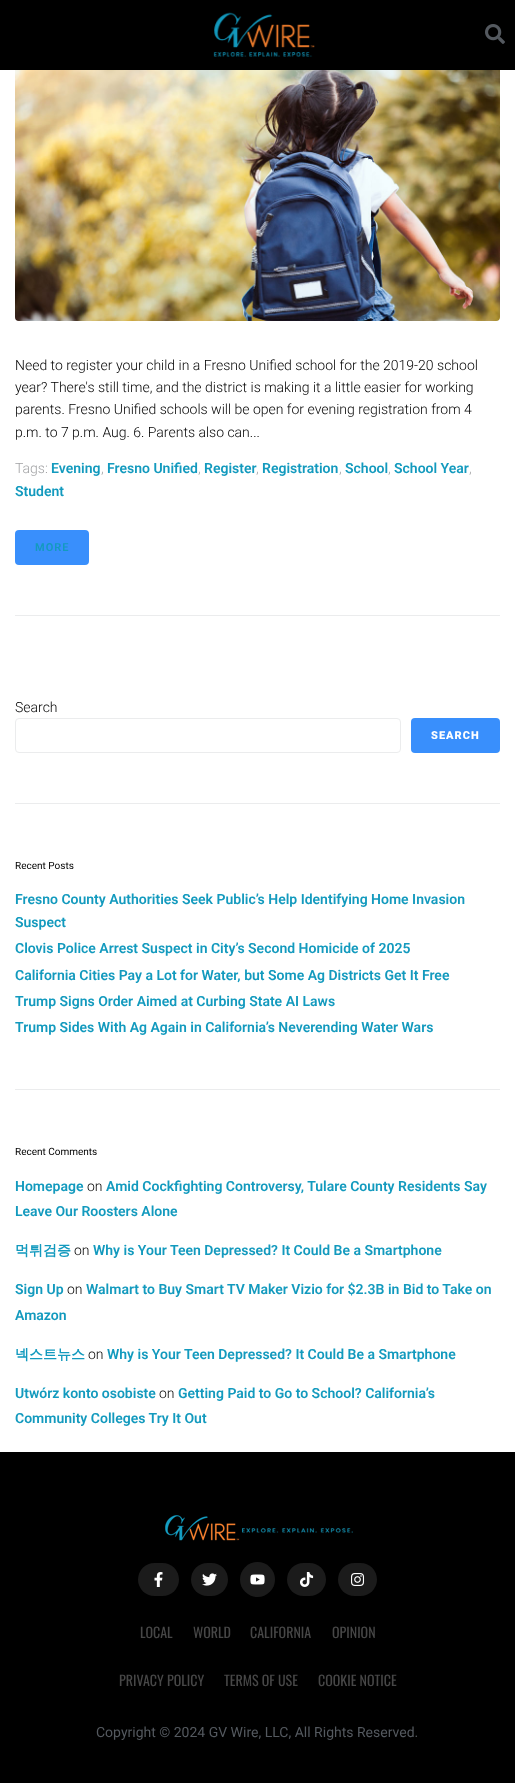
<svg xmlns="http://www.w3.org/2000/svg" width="515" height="1783">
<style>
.a{font:300 14px Roboto;fill:#000}
.b{font:300 14px Roboto;fill:#a1a2a4}
.c{font:600 14px Roboto;fill:#139abe}
.d{font:600 11px Roboto;letter-spacing:1px;fill:#139abe}
.e{font:900 11px Roboto;letter-spacing:1px;fill:#fff}
.f{font:10px Roboto;fill:#000}
.g{font:bold 14px WenQuanYi Zen Hei;fill:#139abe}
.h{font:14px Oswald;fill:#474747}
.i{font:14px Roboto;fill:#54595f}
</style>
<rect width="100%" height="100%" fill="#fff"/>
<path fill="#000" d="M0 0h515v70H0z"/>
<image href="1.png" x="213" y="12" width="102" height="45"/>
<image href="2.png" x="485" y="24" width="20" height="20"/>
<image href="3.png" x="15" y="70" width="485" height="251"/>
<rect fill="#398ffc" x="15" y="530" width="74" height="35" rx="4"/>
<path fill="#ebeced" d="M15 615h485v1H15z"/>
<rect fill="none" stroke="#ebeced" x="15.5" y="718.5" width="385" height="34" rx="3.5"/>
<rect fill="#398ffc" x="411" y="718" width="89" height="35" rx="4"/>
<path fill="#ebeced" d="M15 803h485v1H15z"/>
<path fill="#ebeced" d="M15 1089h485v1H15z"/>
<path fill="#000" d="M0 1452h515v331H0z"/>
<image href="4.png" x="165" y="1515" width="188" height="26"/>
<rect fill="#1b1b1b" x="138" y="1563" width="41" height="33" rx="16.5"/>
<image href="5.png" x="154" y="1572" width="9" height="15"/>
<rect fill="#1b1b1b" x="191" y="1563" width="37" height="33" rx="16.5"/>
<image href="6.png" x="202" y="1573" width="15" height="13"/>
<circle fill="#1b1b1b" cx="257.5" cy="1579.5" r="17.5"/>
<image href="7.png" x="250" y="1574" width="15" height="11"/>
<rect fill="#1b1b1b" x="287" y="1563" width="39" height="33" rx="16.5"/>
<image href="8.png" x="300" y="1572" width="14" height="15"/>
<rect fill="#1b1b1b" x="338" y="1563" width="39" height="33" rx="16.5"/>
<image href="9.png" x="351" y="1573" width="14" height="13"/>
<text class="a" x="15" y="370">Need to register your child in a Fresno Unified school for the 2019-20 school</text>
<text class="a" x="15" y="392">year? There's still time, and the district is making it a little easier for working</text>
<text class="a" x="15" y="414">parents. Fresno Unified schools will be open for evening registration from 4</text>
<text class="a" x="15" y="437">p.m. to 7 p.m. Aug. 6. Parents also can...</text>
<text class="b" x="15" y="473">Tags:</text>
<text class="c" x="51" y="473">Evening</text>
<text class="b" x="101" y="473">,</text>
<text class="c" x="107" y="473">Fresno Unified</text>
<text class="b" x="198" y="473">,</text>
<text class="c" x="204" y="473">Register</text>
<text class="b" x="256" y="473">,</text>
<text class="c" x="262" y="473">Registration</text>
<text class="b" x="339" y="473">,</text>
<text class="c" x="345" y="473">School</text>
<text class="b" x="388" y="473">,</text>
<text class="c" x="394" y="473">School Year</text>
<text class="b" x="469" y="473">,</text>
<text class="c" x="15" y="496">Student</text>
<text class="d" x="35" y="551">MORE</text>
<text class="a" x="15" y="712">Search</text>
<text class="e" x="431" y="739">SEARCH</text>
<text class="f" x="15" y="869">Recent Posts</text>
<text class="c" x="15" y="904">Fresno County Authorities Seek Public’s Help Identifying Home Invasion</text>
<text class="c" x="15" y="927">Suspect</text>
<text class="c" x="15" y="953">Clovis Police Arrest Suspect in City’s Second Homicide of 2025</text>
<text class="c" x="15" y="980">California Cities Pay a Lot for Water, but Some Ag Districts Get It Free</text>
<text class="c" x="15" y="1006">Trump Signs Order Aimed at Curbing State AI Laws</text>
<text class="c" x="15" y="1032">Trump Sides With Ag Again in California’s Neverending Water Wars</text>
<text class="f" x="15" y="1155">Recent Comments</text>
<text class="c" x="15" y="1191">Homepage</text>
<text class="a" x="87" y="1191">on</text>
<text class="c" x="106" y="1191">Amid Cockfighting Controversy, Tulare County Residents Say</text>
<text class="c" x="15" y="1216">Leave Our Roosters Alone</text>
<text class="g" x="15" y="1255">먹튀검증</text>
<text class="a" x="74" y="1255">on</text>
<text class="c" x="93" y="1255">Why is Your Teen Depressed? It Could Be a Smartphone</text>
<text class="c" x="15" y="1294">Sign Up</text>
<text class="a" x="67" y="1294">on</text>
<text class="c" x="86" y="1294">Walmart to Buy Smart TV Maker Vizio for $2.3B in Bid to Take on</text>
<text class="c" x="15" y="1320">Amazon</text>
<text class="g" x="15" y="1359">넥스트뉴스</text>
<text class="a" x="88" y="1359">on</text>
<text class="c" x="107" y="1359">Why is Your Teen Depressed? It Could Be a Smartphone</text>
<text class="c" x="15" y="1398">Utwórz konto osobiste</text>
<text class="a" x="159" y="1398">on</text>
<text class="c" x="178" y="1398">Getting Paid to Go to School? California’s</text>
<text class="c" x="15" y="1423">Community Colleges Try It Out</text>
<text class="h" x="140" y="1638">LOCAL</text>
<text class="h" x="193" y="1638">WORLD</text>
<text class="h" x="250" y="1638">CALIFORNIA</text>
<text class="h" x="332" y="1638">OPINION</text>
<text class="h" x="119" y="1686">PRIVACY POLICY</text>
<text class="h" x="224" y="1686">TERMS OF USE</text>
<text class="h" x="318" y="1686">COOKIE NOTICE</text>
<text class="i" x="96" y="1737">Copyright © 2024 GV Wire, LLC, All Rights Reserved.</text>
</svg>
